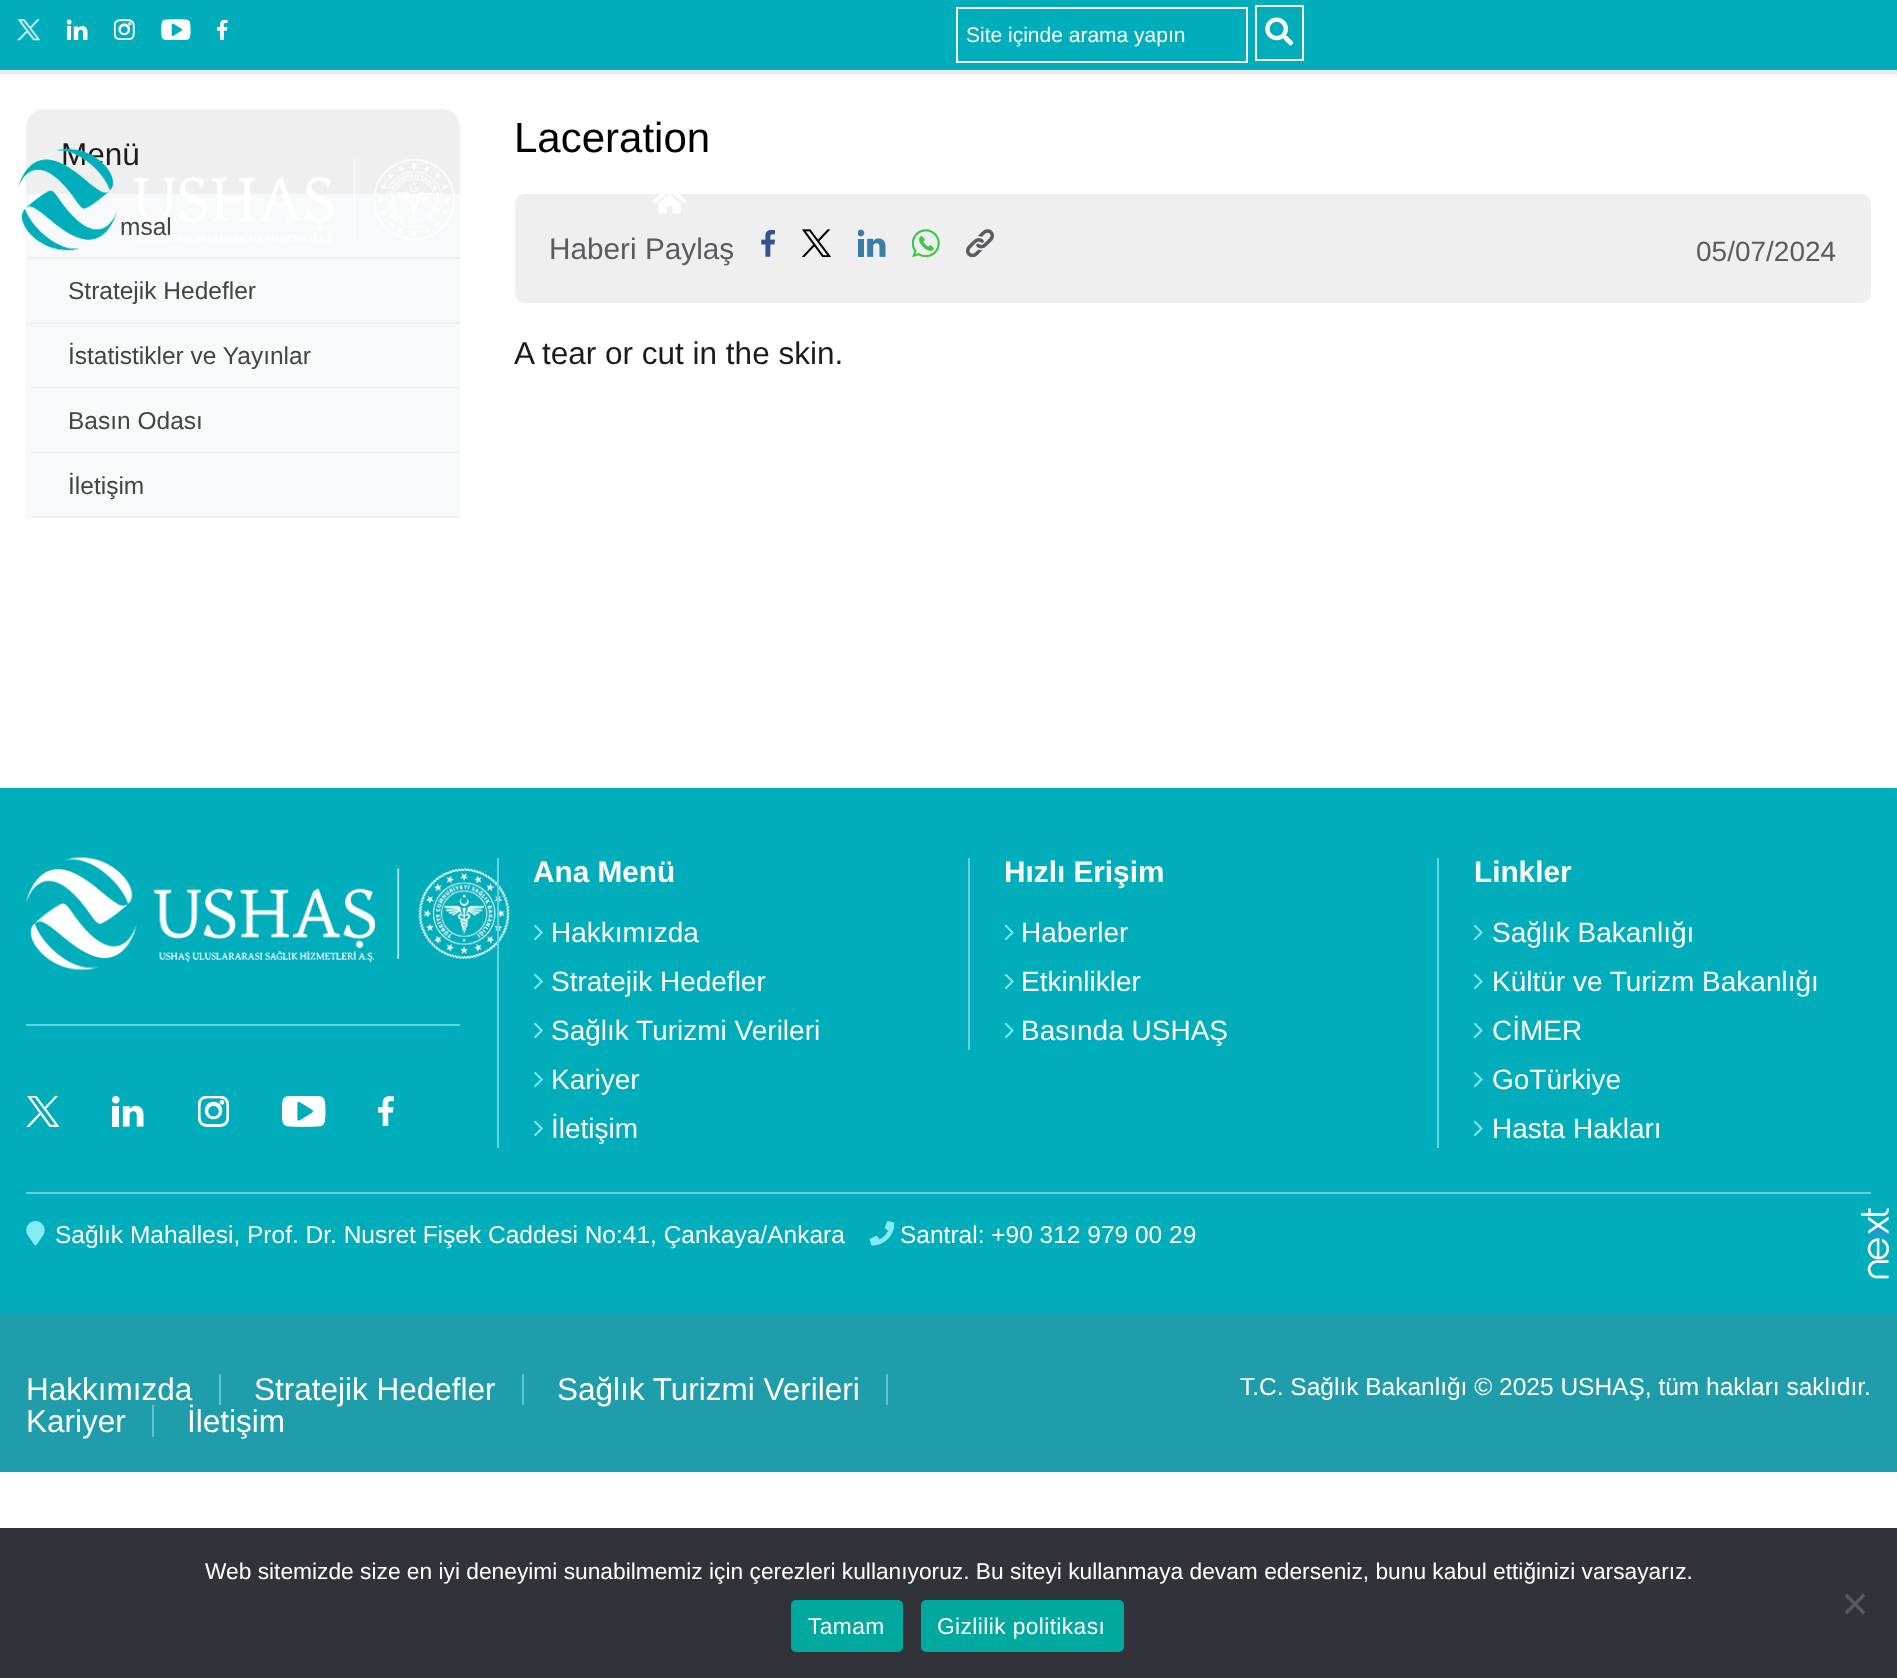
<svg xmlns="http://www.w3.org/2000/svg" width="1897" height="1678">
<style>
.a{font:21px Liberation Sans;fill:#fff}
.b{font:31.5px Liberation Sans;fill:#1b1b1b}
.c{font:24.5px Liberation Sans;fill:#444}
.d{font:42px Liberation Sans;fill:#000}
.e{font:29.75px Liberation Sans;fill:#5a5b5e}
.f{font:28px Liberation Sans;fill:#5a5b5e}
.g{font:bold 29.75px Liberation Sans;fill:#fff}
.h{font:28px Liberation Sans;fill:#fff}
.i{font:24.5px Liberation Sans;fill:#fff}
.j{font:31.5px Liberation Sans;fill:#fff}
.k{font:22.75px Liberation Sans;fill:#fff}
.l{font:22.75px Liberation Sans;letter-spacing:0.4px;fill:#fff}
</style>
<rect width="100%" height="100%" fill="#fff"/>
<path fill="#00adbb" d="M0 0h1897v70H0z"/>
<image href="1.png" x="17" y="19" width="24" height="22"/>
<image href="2.png" x="67" y="19" width="21" height="21"/>
<image href="3.png" x="114" y="19" width="21" height="21"/>
<image href="4.png" x="161" y="19" width="30" height="21"/>
<image href="5.png" x="217" y="20" width="11" height="20"/>
<path fill="none" stroke="#fff" stroke-width="2" d="M957 8h290v54H957z"/>
<path fill="none" stroke="#fff" stroke-width="2" d="M1256 6h47v54H1256z"/>
<image href="6.png" x="1265" y="17" width="29" height="29"/>
<rect fill="#efefef" x="515" y="194" width="1356" height="109" rx="9"/>
<image href="8.png" x="653" y="194" width="33" height="20"/>
<path fill="#eaeaea" d="M0 70h1897v4H0z"/>
<path fill="#efefef" d="M44 109h398c10 0 18 8 18 18v67h-434v-67c0-10 8-18 18-18z"/>
<path fill="#f8f9fa" d="M26 194h434v324H26z"/>
<path fill="#f0f0f0" d="M460 259h-434l7-2h427z"/>
<path fill="#f0f0f0" d="M460 324h-434l7-2h427z"/>
<path fill="#f0f0f0" d="M460 388h-434l7-1h427z"/>
<path fill="#f0f0f0" d="M460 453h-434l7-1h427z"/>
<path fill="#f0f0f0" d="M460 518h-434l7-2h427z"/>
<image href="9.png" x="761" y="230" width="14" height="27"/>
<image href="10.png" x="802" y="229" width="29" height="28"/>
<image href="11.png" x="858" y="229" width="28" height="28"/>
<image href="12.png" x="912" y="229" width="28" height="28"/>
<image href="13.png" x="966" y="229" width="28" height="28"/>
<path fill="#00adbb" d="M0 788h1897v525H0z"/>
<path fill="#61d4df" d="M26 1192h1845v2H26z"/>
<image href="14.png" x="26" y="857" width="484" height="113"/>
<path fill="#61d4df" d="M26 1024h434v2H26z"/>
<image href="15.png" x="26" y="1096" width="34" height="31"/>
<image href="16.png" x="112" y="1096" width="32" height="31"/>
<image href="17.png" x="198" y="1096" width="31" height="31"/>
<image href="18.png" x="282" y="1096" width="44" height="31"/>
<image href="19.png" x="378" y="1096" width="16" height="30"/>
<path fill="#61d4df" d="M497 858h2v290H497z"/>
<image href="20.png" x="534" y="924" width="9" height="17"/>
<image href="20.png" x="534" y="973" width="9" height="17"/>
<image href="20.png" x="534" y="1022" width="9" height="17"/>
<image href="20.png" x="534" y="1071" width="9" height="17"/>
<image href="20.png" x="534" y="1120" width="9" height="17"/>
<path fill="#61d4df" d="M968 858h2v192H968z"/>
<image href="21.png" x="1004" y="924" width="10" height="17"/>
<image href="21.png" x="1004" y="973" width="10" height="17"/>
<image href="21.png" x="1004" y="1022" width="10" height="17"/>
<path fill="#61d4df" d="M1437 858h2v290H1437z"/>
<image href="21.png" x="1473" y="924" width="10" height="17"/>
<image href="21.png" x="1473" y="973" width="10" height="17"/>
<image href="21.png" x="1473" y="1022" width="10" height="17"/>
<image href="21.png" x="1473" y="1071" width="10" height="17"/>
<image href="21.png" x="1473" y="1120" width="10" height="17"/>
<image href="22.png" x="26" y="1221" width="19" height="25"/>
<image href="23.png" x="869" y="1221" width="26" height="25"/>
<image href="24.png" x="1861" y="1208" width="28" height="71"/>
<path fill="#1f9daa" d="M0 1313h1897v159H0z"/>
<path fill="#57c8d3" d="M219 1374h2v31H219z"/>
<path fill="#57c8d3" d="M522 1374h2v31H522z"/>
<path fill="#57c8d3" d="M886 1374h2v31H886z"/>
<path fill="#57c8d3" d="M152 1405h2v32H152z"/>
<path fill="#32323a" d="M0 1528h1897v150H0z"/>
<path fill="#59595d" d="M1863 1593.5l2.5 2.5l-18.5 18.5l-2.5-2.5z"/>
<path fill="#59595d" d="M1844.5 1596l2.5-2.5l18.5 18.5l-2.5 2.5z"/>
<rect fill="#00a99d" x="791" y="1600" width="112" height="52" rx="5"/>
<rect fill="#00a99d" x="921" y="1600" width="203" height="52" rx="5"/>
<text class="a" x="966" y="42">Site içinde arama yapın</text>
<text class="b" x="61" y="165">Menü</text>
<text class="c" x="120" y="235">msal</text>
<image href="7.png" x="17" y="148" width="438" height="103"/>
<text class="c" x="68" y="299">Stratejik Hedefler</text>
<text class="c" x="68" y="364">İstatistikler ve Yayınlar</text>
<text class="c" x="68" y="429">Basın Odası</text>
<text class="c" x="68" y="494">İletişim</text>
<text class="d" x="514" y="152">Laceration</text>
<text class="e" x="549" y="259">Haberi Paylaş</text>
<text class="f" x="1696" y="261">05/07/2024</text>
<text class="b" x="514" y="364">A tear or cut in the skin.</text>
<text class="g" x="533" y="882">Ana Menü</text>
<text class="h" x="551" y="942">Hakkımızda</text>
<text class="h" x="551" y="991">Stratejik Hedefler</text>
<text class="h" x="551" y="1040">Sağlık Turizmi Verileri</text>
<text class="h" x="551" y="1089">Kariyer</text>
<text class="h" x="551" y="1138">İletişim</text>
<text class="g" x="1004" y="882">Hızlı Erişim</text>
<text class="h" x="1021" y="942">Haberler</text>
<text class="h" x="1021" y="991">Etkinlikler</text>
<text class="h" x="1021" y="1040">Basında USHAŞ</text>
<text class="g" x="1474" y="882">Linkler</text>
<text class="h" x="1492" y="942">Sağlık Bakanlığı</text>
<text class="h" x="1492" y="991">Kültür ve Turizm Bakanlığı</text>
<text class="h" x="1492" y="1040">CİMER</text>
<text class="h" x="1492" y="1089">GoTürkiye</text>
<text class="h" x="1492" y="1138">Hasta Hakları</text>
<text class="i" x="55" y="1243">Sağlık Mahallesi, Prof. Dr. Nusret Fişek Caddesi No:41, Çankaya/Ankara</text>
<text class="i" x="900" y="1243">Santral: +90 312 979 00 29</text>
<text class="j" x="26" y="1400">Hakkımızda</text>
<text class="j" x="254" y="1400">Stratejik Hedefler</text>
<text class="j" x="557" y="1400">Sağlık Turizmi Verileri</text>
<text class="j" x="26" y="1432">Kariyer</text>
<text class="j" x="187" y="1432">İletişim</text>
<text class="i" x="1240" y="1395">T.C. Sağlık Bakanlığı © 2025 USHAŞ, tüm hakları saklıdır.</text>
<text class="k" x="205" y="1579">Web sitemizde size en iyi deneyimi sunabilmemiz için çerezleri kullanıyoruz. Bu siteyi kullanmaya devam ederseniz, bunu kabul ettiğinizi varsayarız.</text>
<text class="l" x="808" y="1634">Tamam</text>
<text class="l" x="937" y="1634">Gizlilik politikası</text>
</svg>
